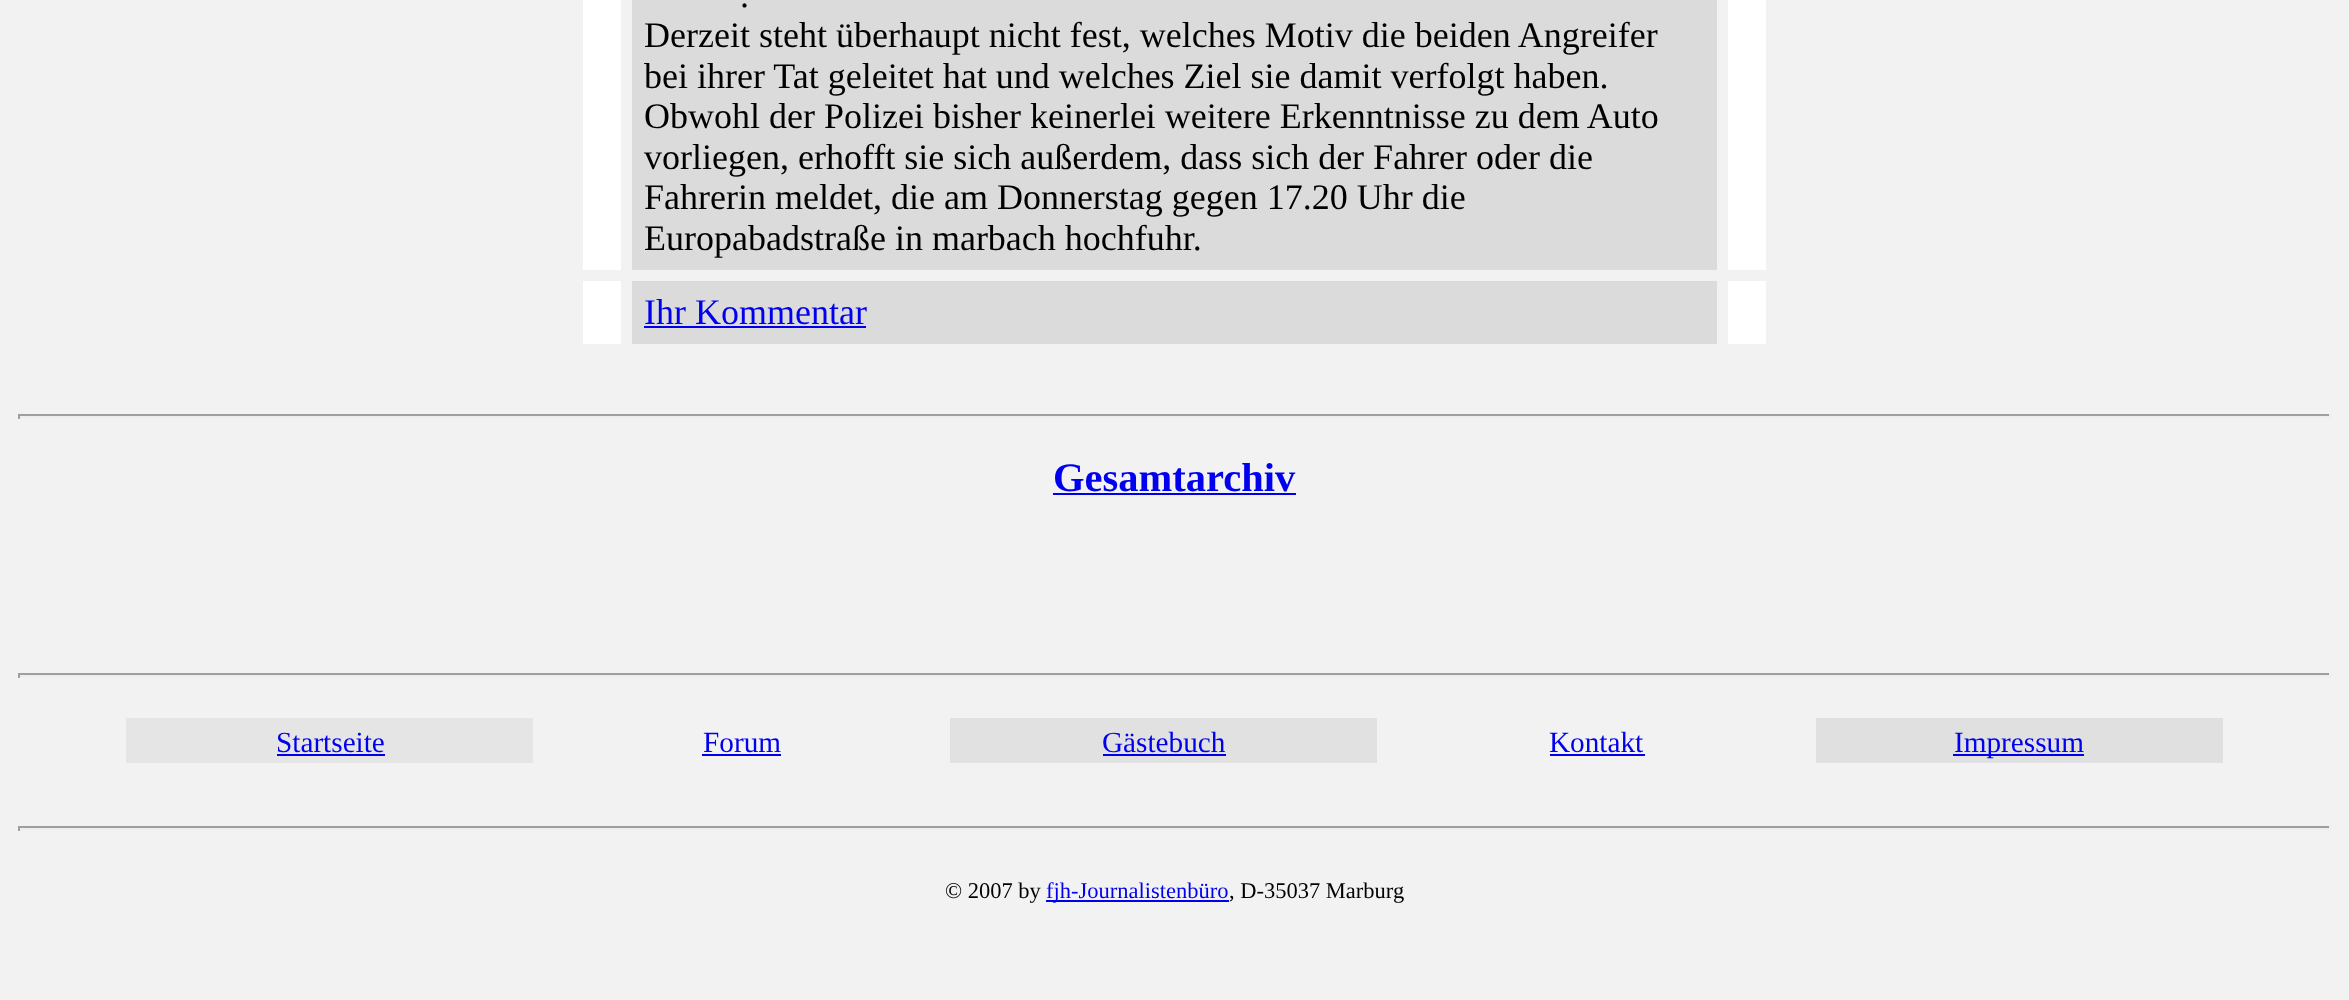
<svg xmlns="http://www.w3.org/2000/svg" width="2349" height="1000">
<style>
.a{font:36px Liberation Serif;fill:#000}
.b{font:36px Liberation Serif;fill:#00e}
.c{font:bold 40.5px Liberation Serif;fill:#00e}
.d{font:29.25px Liberation Serif;fill:#00e}
.e{font:22.5px Liberation Serif;fill:#000}
.f{font:22.5px Liberation Serif;fill:#00e}
</style>
<rect width="100%" height="100%" fill="#f2f2f2"/>
<path fill="#fff" d="M583 0h38v270H583z"/>
<path fill="#dbdbdb" d="M632 0h1085v270H632z"/>
<path fill="#fff" d="M1728 0h38v270H1728z"/>
<path fill="#fff" d="M583 281h38v63H583z"/>
<path fill="#dbdbdb" d="M632 281h1085v63H632z"/>
<path fill="#00e" d="M644 326h222v2H644z"/>
<path fill="#fff" d="M1728 281h38v63H1728z"/>
<path fill="#9f9f9f" d="M18 414h2313v2H18z"/>
<path fill="#eee" d="M2329 414h2v5H2329z"/>
<path fill="#eee" d="M18 416h2313v2H18z"/>
<path fill="#9f9f9f" d="M18 414h2v5H18z"/>
<path fill="#00e" d="M1053 493h243v2H1053z"/>
<path fill="#9f9f9f" d="M18 673h2313v2H18z"/>
<path fill="#eee" d="M2329 673h2v5H2329z"/>
<path fill="#eee" d="M18 675h2313v2H18z"/>
<path fill="#9f9f9f" d="M18 673h2v5H18z"/>
<path fill="#e5e5e5" d="M126 718h407v45H126z"/>
<path fill="#00e" d="M277 754h108v2H277z"/>
<path fill="#00e" d="M702 754h79v2H702z"/>
<path fill="#e1e1e1" d="M950 718h427v45H950z"/>
<path fill="#00e" d="M1103 754h123v2H1103z"/>
<path fill="#00e" d="M1550 754h95v2H1550z"/>
<path fill="#e0e0e0" d="M1816 718h407v45H1816z"/>
<path fill="#00e" d="M1953 754h131v2H1953z"/>
<path fill="#9f9f9f" d="M18 826h2313v2H18z"/>
<path fill="#eee" d="M2329 826h2v5H2329z"/>
<path fill="#eee" d="M18 828h2313v2H18z"/>
<path fill="#9f9f9f" d="M18 826h2v5H18z"/>
<path fill="#00e" d="M1046 900h183v2H1046z"/>
<text class="a" x="740" y="7">.</text>
<text class="a" x="644" y="47">Derzeit steht überhaupt nicht fest, welches Motiv die beiden Angreifer</text>
<text class="a" x="644" y="88">bei ihrer Tat geleitet hat und welches Ziel sie damit verfolgt haben.</text>
<text class="a" x="644" y="128">Obwohl der Polizei bisher keinerlei weitere Erkenntnisse zu dem Auto</text>
<text class="a" x="644" y="169">vorliegen, erhofft sie sich außerdem, dass sich der Fahrer oder die</text>
<text class="a" x="644" y="209">Fahrerin meldet, die am Donnerstag gegen 17.20 Uhr die</text>
<text class="a" x="644" y="250">Europabadstraße in marbach hochfuhr.</text>
<text class="b" x="644" y="324">Ihr Kommentar</text>
<text class="c" x="1053" y="491">Gesamtarchiv</text>
<text class="d" x="276" y="752">Startseite</text>
<text class="d" x="703" y="752">Forum</text>
<text class="d" x="1102" y="752">Gästebuch</text>
<text class="d" x="1549" y="752">Kontakt</text>
<text class="d" x="1954" y="752">Impressum</text>
<text class="e" x="945" y="898">© 2007 by</text>
<text class="f" x="1046" y="898">fjh-Journalistenbüro</text>
<text class="e" x="1229" y="898">, D-35037 Marburg</text>
</svg>
